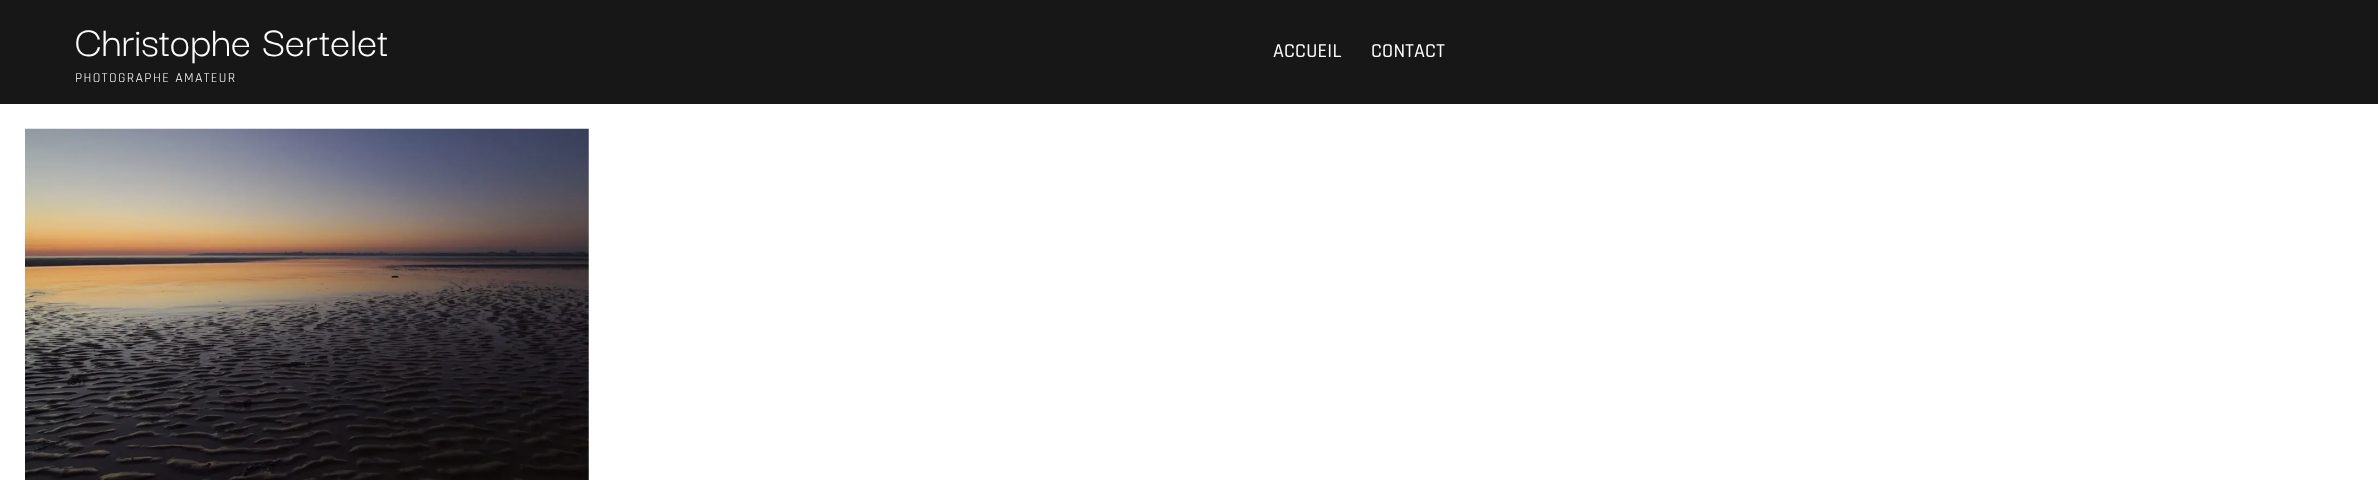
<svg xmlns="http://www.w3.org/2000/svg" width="2378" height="480">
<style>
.a{font:45px Darker Grotesque;fill:#fff}
.b{font:13.75px Rajdhani;letter-spacing:1.4px;fill:#fff}
.c{font:500 20px Rajdhani;letter-spacing:0.25px;fill:#fff}
</style>
<rect width="100%" height="100%" fill="#fff"/>
<path fill="#171717" d="M0 0h2378v104H0z"/>
<image href="1.png" x="25" y="128" width="564" height="352"/>
<text class="a" x="75" y="56">Christophe Sertelet</text>
<text class="b" x="75" y="82">PHOTOGRAPHE AMATEUR</text>
<text class="c" x="1273" y="57">ACCUEIL</text>
<text class="c" x="1371" y="57">CONTACT</text>
</svg>
